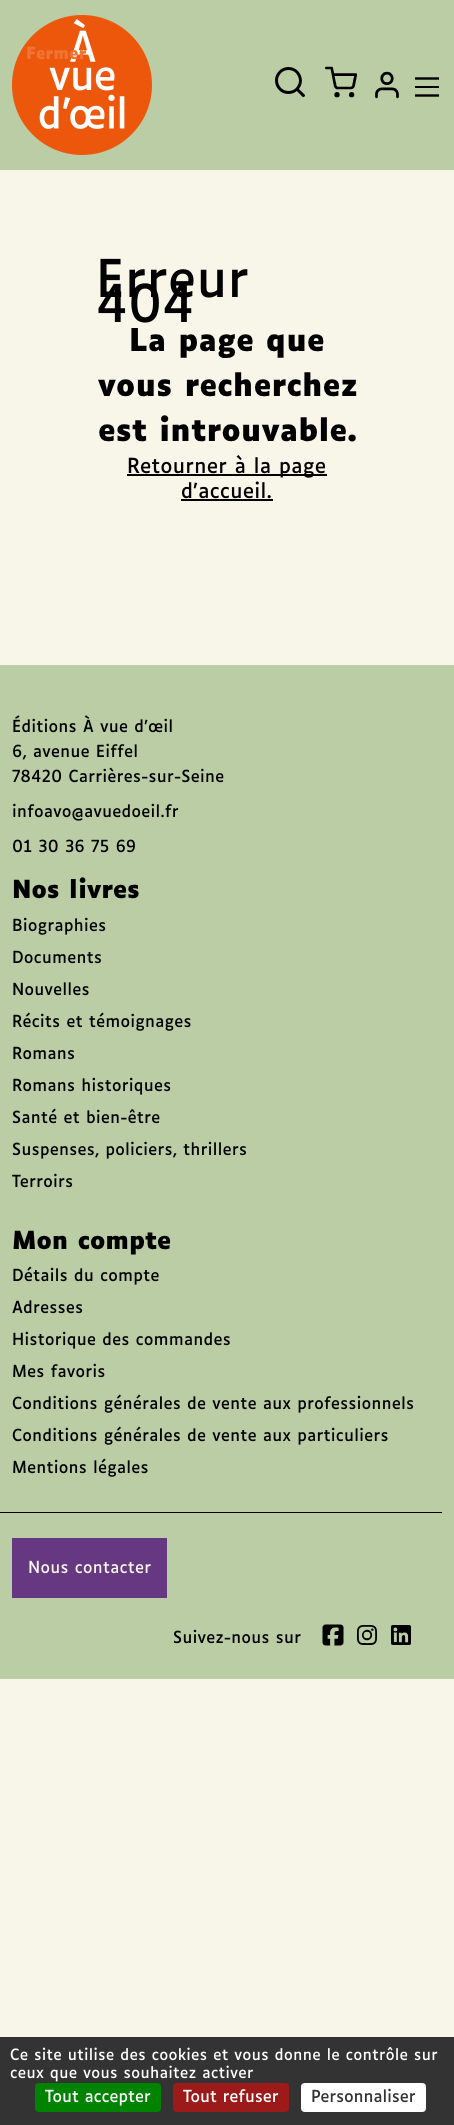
<svg xmlns="http://www.w3.org/2000/svg" width="454" height="2125">
<style>
.a{font:bold 16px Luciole;fill:#f07434}
.b{font:bold 30px Luciole;letter-spacing:0.25px;fill:#000}
.c{font:bold 24px Luciole;fill:#000}
</style>
<rect width="100%" height="100%" fill="#f8f5e9"/>
<path fill="#bbcda5" d="M0 0h454v170H0z"/>
<image href="1.png" x="12" y="15" width="140" height="140"/>
<image href="2.png" x="275" y="67" width="30" height="30"/>
<image href="3.png" x="325" y="66" width="32" height="32"/>
<image href="4.png" x="375" y="71" width="24" height="28"/>
<path fill="none" stroke="#000" stroke-width="2.4" d="M415 78.5h24"/>
<path fill="#000" d="M415 86h24v2H415z"/>
<path fill="none" stroke="#000" stroke-width="2.4" d="M415 95.5h24"/>
<image href="5.png" x="100" y="258" width="148" height="40"/>
<image href="6.png" x="98" y="283" width="94" height="40"/>
<path fill="#000" d="M127 474h200v2H127z"/>
<image href="7.png" x="128" y="455" width="197" height="23"/>
<image href="8.png" x="182" y="481" width="89" height="18"/>
<path fill="#000" d="M181 499h92v2H181z"/>
<path fill="#bbcda5" d="M0 665h454v1014H0z"/>
<image href="9.png" x="13" y="715" width="159" height="18"/>
<image href="10.png" x="13" y="743" width="124" height="17"/>
<image href="11.png" x="12" y="767" width="212" height="16"/>
<image href="12.png" x="13" y="803" width="166" height="18"/>
<image href="13.png" x="13" y="839" width="122" height="14"/>
<image href="14.png" x="13" y="917" width="93" height="18"/>
<image href="15.png" x="13" y="950" width="88" height="14"/>
<image href="16.png" x="13" y="982" width="76" height="14"/>
<image href="17.png" x="13" y="1012" width="178" height="19"/>
<image href="18.png" x="13" y="1046" width="61" height="14"/>
<image href="19.png" x="13" y="1077" width="158" height="18"/>
<image href="20.png" x="12" y="1108" width="148" height="16"/>
<image href="21.png" x="12" y="1141" width="234" height="18"/>
<image href="22.png" x="12" y="1173" width="61" height="15"/>
<image href="23.png" x="13" y="1266" width="146" height="19"/>
<image href="24.png" x="12" y="1300" width="71" height="14"/>
<image href="25.png" x="13" y="1331" width="217" height="18"/>
<image href="26.png" x="13" y="1363" width="92" height="15"/>
<image href="27.png" x="12" y="1394" width="402" height="19"/>
<image href="28.png" x="12" y="1426" width="376" height="19"/>
<image href="29.png" x="13" y="1458" width="135" height="19"/>
<path fill="#000" d="M0 1512h442v1H0z"/>
<path fill="#663882" d="M12 1538h155v60H12z"/>
<image href="30.png" x="29" y="1560" width="122" height="14"/>
<image href="31.png" x="173" y="1629" width="128" height="15"/>
<image href="32.png" x="322" y="1624" width="22" height="22"/>
<image href="33.png" x="357" y="1625" width="20" height="20"/>
<image href="34.png" x="391" y="1625" width="20" height="20"/>
<path fill="#333" d="M0 2037h454v88H0z"/>
<image href="35.png" x="10" y="2047" width="428" height="14"/>
<image href="36.png" x="10" y="2065" width="243" height="17"/>
<rect fill="#008300" x="35" y="2083" width="126" height="29" rx="4"/>
<image href="37.png" x="45" y="2089" width="106" height="17"/>
<rect fill="#9c1a1a" x="173" y="2083" width="116" height="29" rx="4"/>
<image href="38.png" x="183" y="2089" width="96" height="14"/>
<rect fill="#fff" x="301" y="2083" width="125" height="29" rx="4"/>
<image href="39.png" x="312" y="2088" width="104" height="15"/>
<text class="a" x="26" y="59">Fermer</text>
<text class="b" x="129" y="351">La page que</text>
<text class="b" x="98" y="396">vous recherchez</text>
<text class="b" x="98" y="441">est introuvable.</text>
<text class="c" x="12" y="898">Nos livres</text>
<text class="c" x="12" y="1249">Mon compte</text>
</svg>
